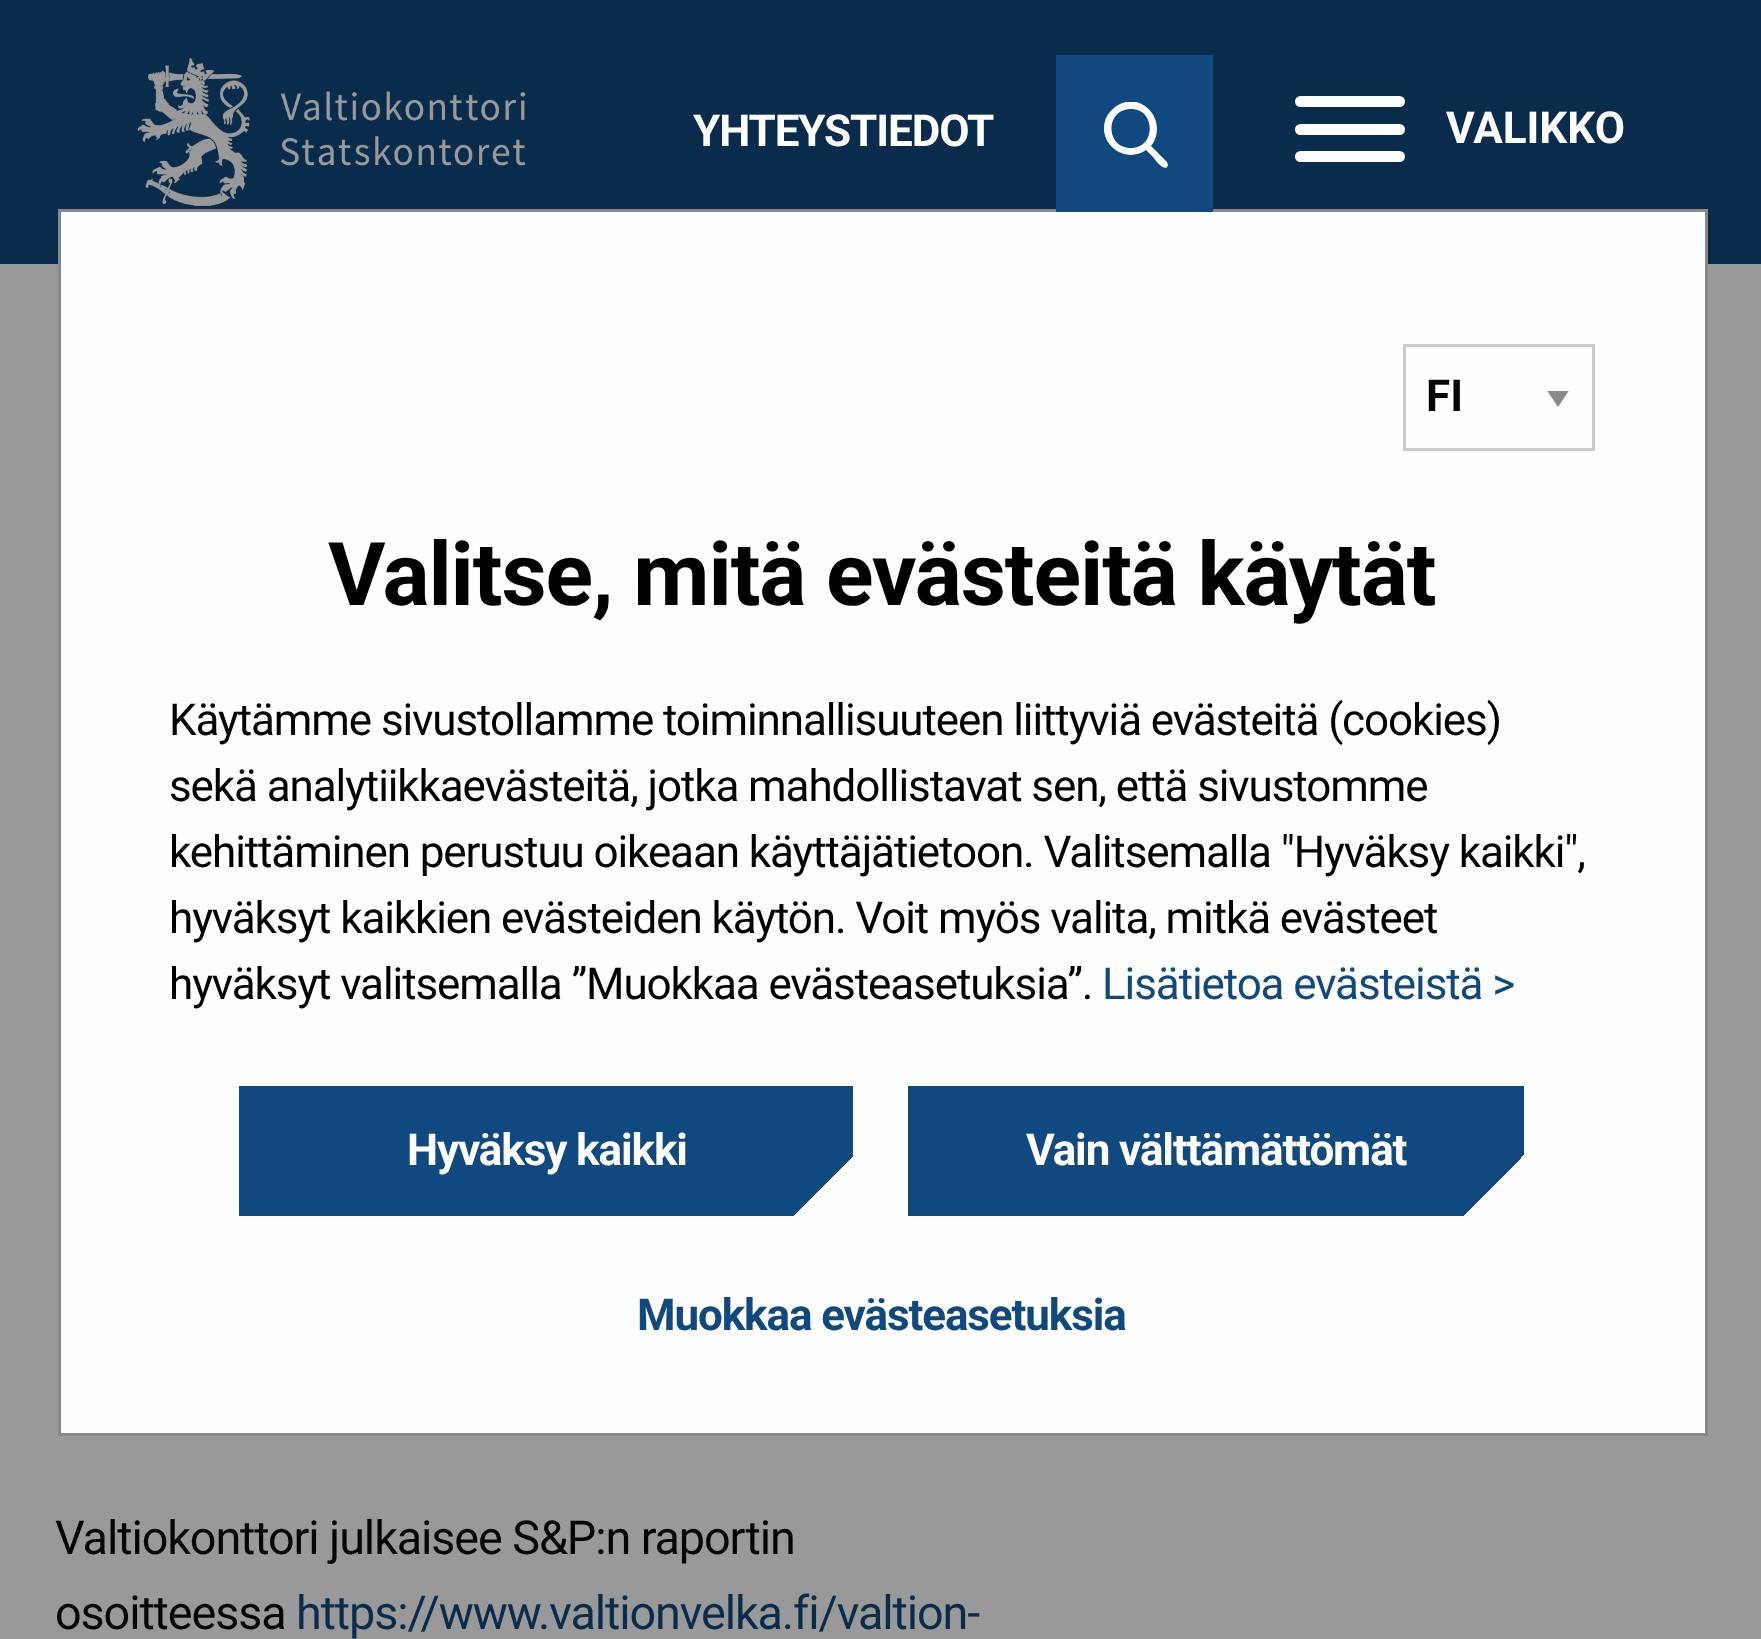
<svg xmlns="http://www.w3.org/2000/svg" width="1761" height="1639">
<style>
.a{font:bold 44px Roboto;letter-spacing:-1.1px;fill:#fefefe}
.b{font:bold 44px Roboto;fill:#fefefe}
.c{font:46.75px Roboto;letter-spacing:-1.1px;fill:#060606}
.d{font:46.75px Roboto;letter-spacing:-1.1px;fill:#0a2c4c}
.e{font:bold 44px Roboto;fill:#060606}
.f{font:bold 88px Roboto;letter-spacing:-1.1px;fill:#000}
.g{font:44px Roboto;letter-spacing:-1.1px;fill:#000}
.h{font:44px Roboto;letter-spacing:-1.1px;fill:#10497f}
.i{font:bold 44px Roboto;letter-spacing:-1.1px;fill:#10497f}
</style>
<defs>
<clipPath id="clip1"><path d="M1103 102h66v66H1103z"/></clipPath>
<clipPath id="clip2"><path d="M1546 391h24v16H1546z"/></clipPath>
<linearGradient id="g1" gradientUnits="userSpaceOnUse" x1="732" y1="1337" x2="360" y2="965"><stop offset="0.08" stop-color="#fefefe"/><stop offset="0.08" stop-color="#10497f"/></linearGradient>
<linearGradient id="g2" gradientUnits="userSpaceOnUse" x1="1402" y1="1337" x2="1029" y2="965"><stop offset="0.08" stop-color="#fefefe"/><stop offset="0.08" stop-color="#10497f"/></linearGradient>
</defs>
<rect width="100%" height="100%" fill="#999"/>
<path fill="#0a2c4c" d="M0 0h1761v264H0z"/>
<image href="1.png" x="138" y="58" width="388" height="148"/>
<path fill="#fefefe" stroke="#888" stroke-width="3" d="M59.5 210.5h1647v1224H59.5z"/>
<path fill="#10497f" d="M1056 55h157v157H1056z"/>
<g clip-path="url(#clip1)">
<path fill="#fff" d="M1167 162l-16-16c10-12 7-31-6-40c-7-5-17-6-25-2c-6 3-11 8-14 14c-10 25 19 47 40 32l8 8c0 1 12 16 14 7c0-1-1-2-1-3zm-36-53c25 0 25 39 0 39c-26 0-26-39 0-39z"/>
</g>
<rect fill="#fff" x="1295" y="124" width="110" height="11" rx="5.5"/>
<rect fill="#fff" x="1295" y="96" width="110" height="11" rx="5.5"/>
<rect fill="#fff" x="1295" y="151" width="110" height="11" rx="5.5"/>
<g clip-path="url(#clip2)">
<path fill="#8a8a8a" d="M1547 390.5h22l-11 16.5z"/>
</g>
<path fill="none" stroke="#cacaca" stroke-width="3" d="M1404.5 345.5h189v104H1404.5z"/>
<path fill="url(#g1)" d="M239 1086h614v130H239z"/>
<path fill="url(#g2)" d="M908 1086h616v130H908z"/>
<text class="a" x="693" y="146">YHTEYSTIEDOT</text>
<text class="b" x="1446" y="143">VALIKKO</text>
<text class="c" x="55" y="1554">Valtiokonttori julkaisee S&amp;P:n raportin</text>
<text class="c" x="55" y="1629">osoitteessa</text>
<text class="d" x="296" y="1629">https://www.valtionvelka.fi/valtion-</text>
<text class="e" x="1426" y="411">FI</text>
<text class="f" x="328" y="605">Valitse, mitä evästeitä käytät</text>
<text class="g" x="169" y="735">Käytämme sivustollamme toiminnallisuuteen liittyviä evästeitä (cookies)</text>
<text class="g" x="169" y="801">sekä analytiikkaevästeitä, jotka mahdollistavat sen, että sivustomme</text>
<text class="g" x="169" y="867">kehittäminen perustuu oikeaan käyttäjätietoon. Valitsemalla "Hyväksy kaikki",</text>
<text class="g" x="169" y="933">hyväksyt kaikkien evästeiden käytön. Voit myös valita, mitkä evästeet</text>
<text class="g" x="169" y="999">hyväksyt valitsemalla ”Muokkaa evästeasetuksia”.</text>
<text class="h" x="1102" y="999">Lisätietoa evästeistä &gt;</text>
<text class="a" x="407" y="1165">Hyväksy kaikki</text>
<text class="a" x="1026" y="1165">Vain välttämättömät</text>
<text class="i" x="637" y="1330">Muokkaa evästeasetuksia</text>
</svg>
